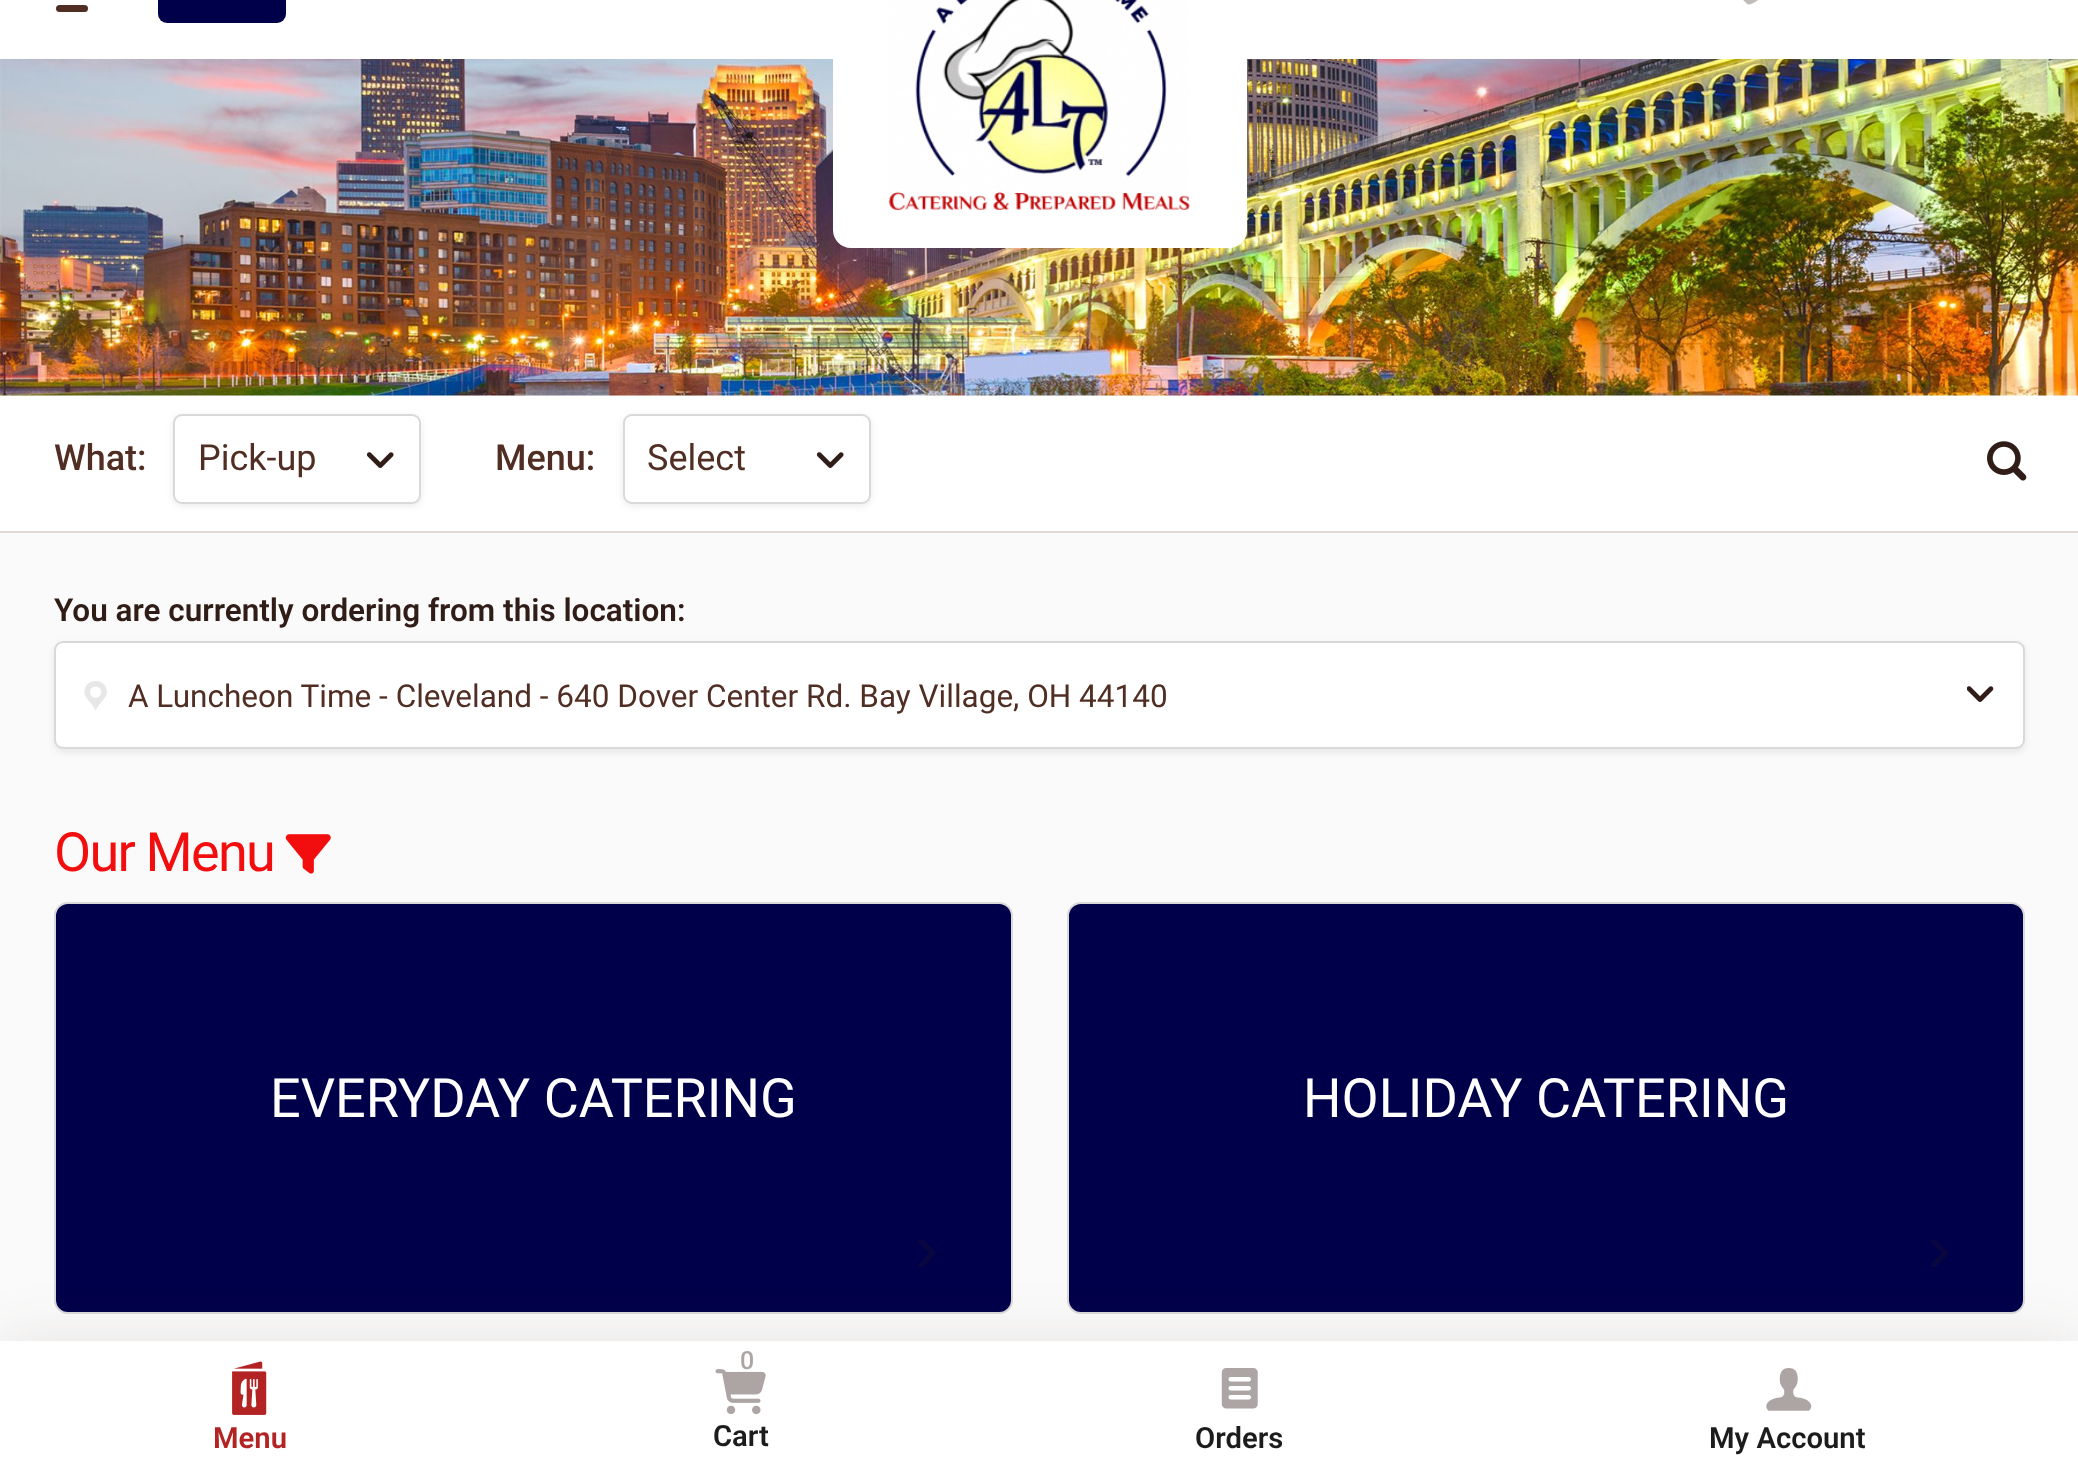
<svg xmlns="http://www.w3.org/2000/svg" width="2078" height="1471">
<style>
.a{font:500 36px Roboto;fill:#502e24}
.b{font:36px Roboto;fill:#502e24}
.c{font:600 31.5px Roboto;fill:#301d17}
.d{font:31.5px Roboto;fill:#502e24}
.e{font:54px Roboto;letter-spacing:-1.75px;fill:#f20e0e}
.f{font:54px Roboto;fill:#fff}
.g{font:600 29.25px Roboto;fill:#b32323}
.h{font:500 25px Roboto;fill:#ada5a3}
.i{font:600 29.25px Roboto;fill:#1c1c1c}
</style>
<rect width="100%" height="100%" fill="#fafafa"/>
<path fill="#fff" d="M0 0h2078v59H0z"/>
<image href="3.png" x="0" y="59" width="2078" height="337"/>
<path fill="#fff" d="M833-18h414v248c0 10-8 18-18 18h-378c-10 0-18-8-18-18z"/>
<image href="1.png" x="888" y="0" width="302" height="212"/>
<rect fill="#502e24" x="56" y="5" width="32" height="7" rx="3.5"/>
<rect fill="#00004a" x="158" y="-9" width="128" height="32" rx="9"/>
<image href="2.png" x="1743" y="0" width="15" height="5"/>
<path fill="#fff" d="M0 396h2078v135H0z"/>
<path fill="#dfd8d7" d="M0 531h2078v2H0z"/>
<rect fill="#00000014" filter="blur(3.5px)" x="173" y="416" width="248" height="90" rx="9"/>
<rect fill="#fff" stroke="#d9d9d9" stroke-width="2" x="174" y="415" width="246" height="88" rx="8"/>
<image href="4.png" x="367" y="452" width="27" height="16"/>
<rect fill="#00000014" filter="blur(3.5px)" x="623" y="416" width="248" height="90" rx="9"/>
<rect fill="#fff" stroke="#d9d9d9" stroke-width="2" x="624" y="415" width="246" height="88" rx="8"/>
<image href="4.png" x="817" y="452" width="27" height="16"/>
<image href="5.png" x="1987" y="441" width="40" height="40"/>
<rect fill="#00000014" filter="blur(3.5px)" x="54" y="644" width="1971" height="108" rx="9"/>
<rect fill="#fff" stroke="#d9d9d9" stroke-width="2" x="55" y="642" width="1969" height="106" rx="8"/>
<image href="6.png" x="84" y="681" width="23" height="29"/>
<image href="7.png" x="1967" y="686" width="27" height="16"/>
<image href="8.png" x="285" y="834" width="46" height="40"/>
<rect fill="#00004a" stroke="#d9d9d9" stroke-width="2" x="55" y="903" width="957" height="410" rx="13"/>
<image href="9.png" x="918" y="1240" width="18" height="27"/>
<rect fill="#00004a" stroke="#d9d9d9" stroke-width="2" x="1068" y="903" width="956" height="410" rx="13"/>
<image href="10.png" x="1931" y="1240" width="17" height="27"/>
<path fill="#502e241a" filter="blur(27px)" d="M0 1337h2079v130H0z"/>
<path fill="#fff" d="M0 1341h2078v130H0z"/>
<image href="11.png" x="232" y="1361" width="35" height="54"/>
<image href="12.png" x="715" y="1369" width="51" height="46"/>
<image href="13.png" x="1221" y="1368" width="37" height="41"/>
<image href="14.png" x="1766" y="1368" width="46" height="43"/>
<text class="a" x="54" y="470">What:</text>
<text class="b" x="198" y="470">Pick-up</text>
<text class="a" x="495" y="470">Menu:</text>
<text class="b" x="647" y="470">Select</text>
<text class="c" x="54" y="621">You are currently ordering from this location:</text>
<text class="d" x="128" y="707">A Luncheon Time - Cleveland - 640 Dover Center Rd. Bay Village, OH 44140</text>
<text class="e" x="54" y="871">Our Menu</text>
<text class="f" x="270" y="1117">EVERYDAY CATERING</text>
<text class="f" x="1303" y="1117">HOLIDAY CATERING</text>
<text class="g" x="213" y="1448">Menu</text>
<text class="h" x="740" y="1369">0</text>
<text class="i" x="713" y="1446">Cart</text>
<text class="i" x="1195" y="1448">Orders</text>
<text class="i" x="1709" y="1448">My Account</text>
</svg>
